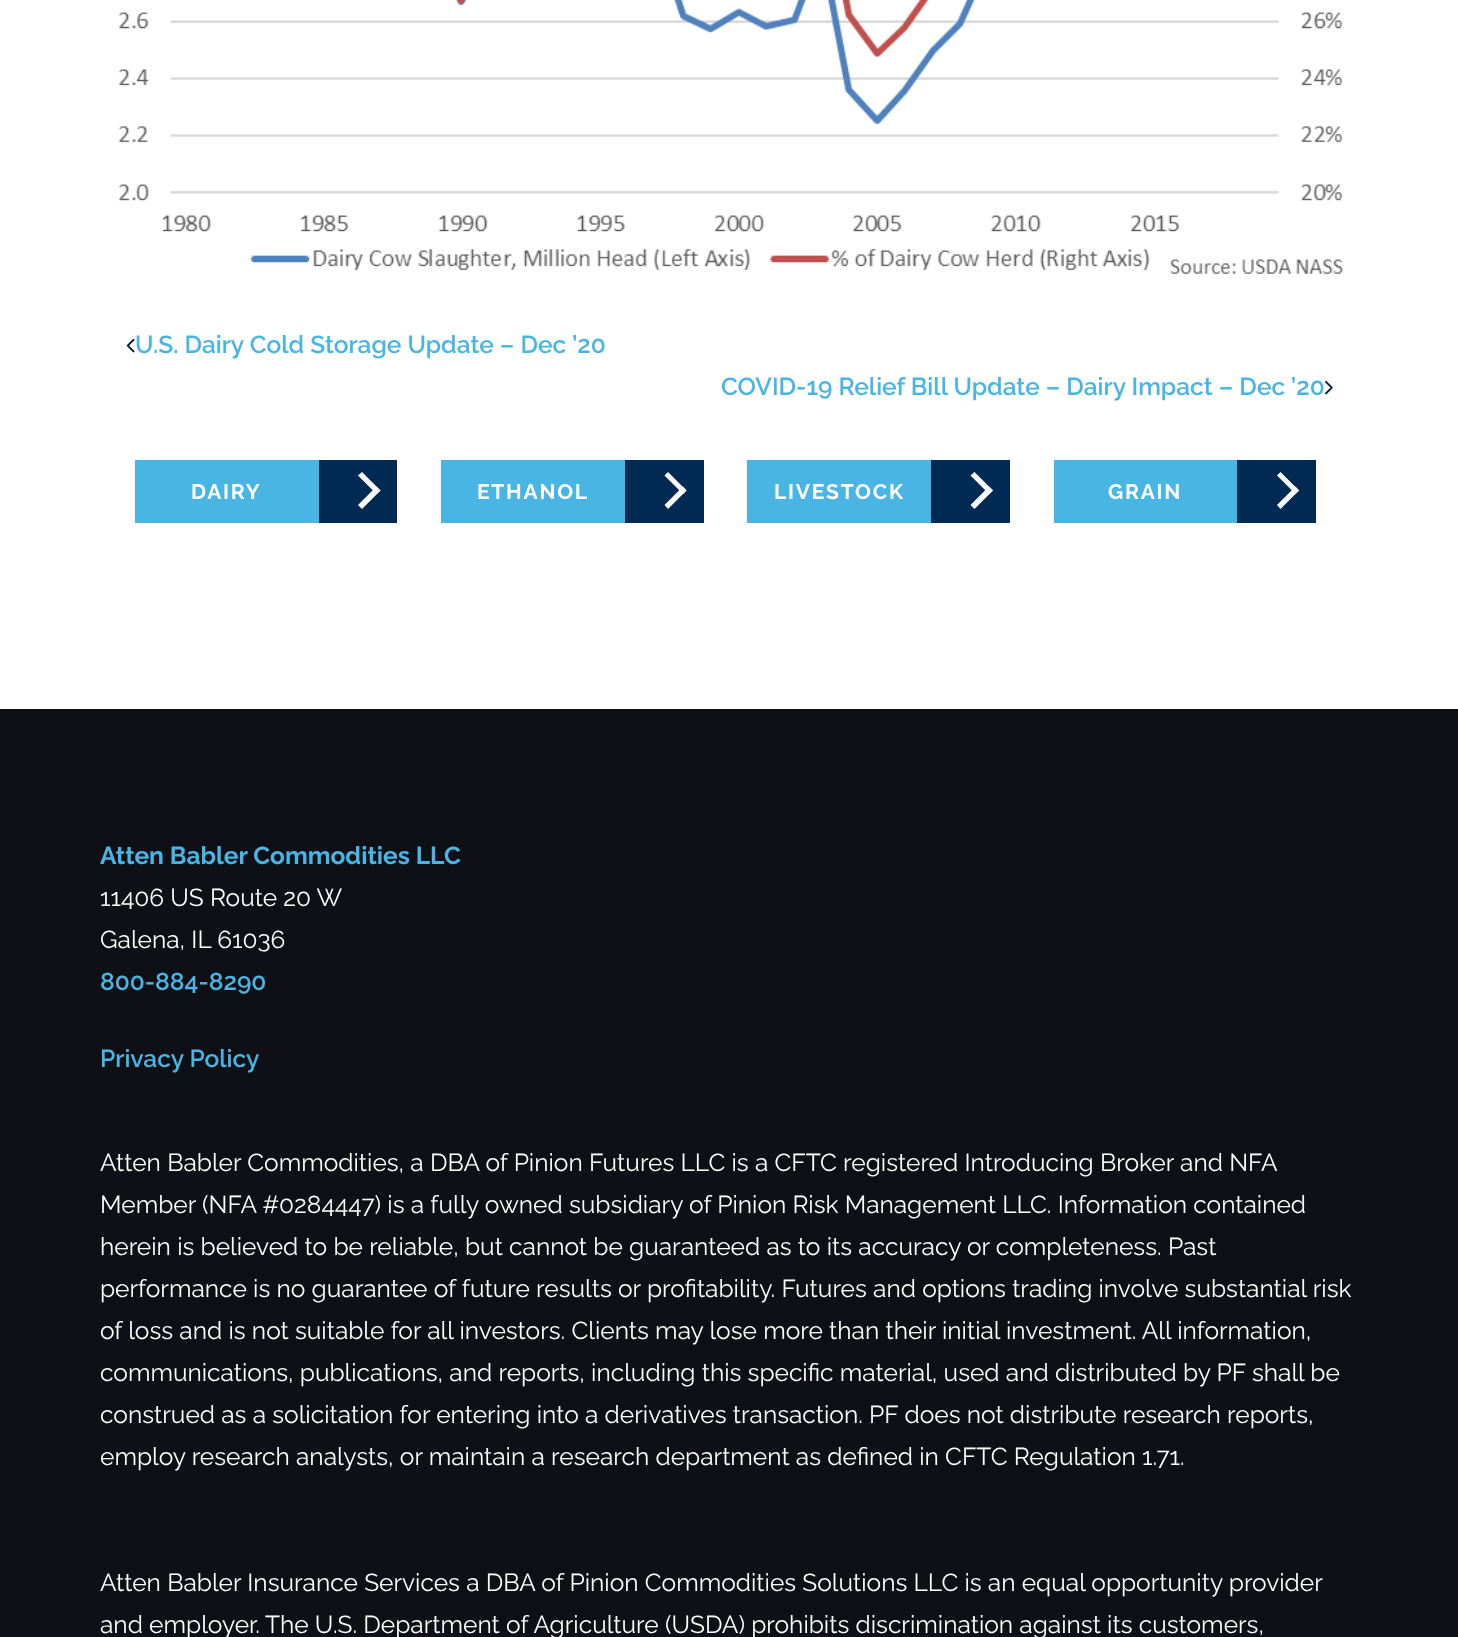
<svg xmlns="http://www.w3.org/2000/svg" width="1458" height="1637">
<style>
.a{font:600 24.5px Raleway;fill:#49b5e4}
.b{font:bold 21px Raleway;letter-spacing:1.75px;fill:#fff}
.c{font:bold 24.5px Raleway;fill:#49b5e4}
.d{font:24.5px Raleway;fill:#fff}
</style>
<rect width="100%" height="100%" fill="#fff"/>
<image href="1.png" x="119" y="0" width="1225" height="274"/>
<image href="2.png" x="126" y="338" width="9" height="15"/>
<image href="3.png" x="1325" y="380" width="8" height="15"/>
<path fill="#49b5e4" d="M135 460h184v63H135z"/>
<path fill="#002a54" d="M319 460h78v63H319z"/>
<path fill="#fff" d="M358 475.5l4-3.5l18.5 18.5l-4 3.5z"/>
<path fill="#fff" d="M358 505l18.5-18.5l4 4l-18.5 18.5z"/>
<path fill="#49b5e4" d="M441 460h184v63H441z"/>
<path fill="#002a54" d="M625 460h79v63H625z"/>
<path fill="#fff" d="M664.5 475.5l3.5-3.5l18.5 18.5l-3.5 3.5z"/>
<path fill="#fff" d="M664.5 505l18.5-18.5l3.5 4l-18.5 18.5z"/>
<path fill="#49b5e4" d="M747 460h184v63H747z"/>
<path fill="#002a54" d="M931 460h79v63H931z"/>
<path fill="#fff" d="M970.5 475.5l4-3.5l18.5 18.5l-4 3.5z"/>
<path fill="#fff" d="M970.5 505l18.5-18.5l4 4l-18.5 18.5z"/>
<path fill="#49b5e4" d="M1054 460h183v63H1054z"/>
<path fill="#002a54" d="M1237 460h79v63H1237z"/>
<path fill="#fff" d="M1277 475.5l3.5-3.5l18.5 18.5l-3.5 3.5z"/>
<path fill="#fff" d="M1277 505l18.5-18.5l3.5 4l-18.5 18.5z"/>
<path fill="#0e1015" d="M0 709h1458v928H0z"/>
<text class="a" x="135" y="353">U.S. Dairy Cold Storage Update – Dec ’20</text>
<text class="a" x="721" y="395">COVID-19 Relief Bill Update – Dairy Impact – Dec ’20</text>
<text class="b" x="191" y="499">DAIRY</text>
<text class="b" x="477" y="499">ETHANOL</text>
<text class="b" x="774" y="499">LIVESTOCK</text>
<text class="b" x="1108" y="499">GRAIN</text>
<text class="c" x="100" y="864">Atten Babler Commodities LLC</text>
<text class="d" x="100" y="906">11406 US Route 20 W</text>
<text class="d" x="100" y="948">Galena, IL 61036</text>
<text class="a" x="100" y="990">800-884-8290</text>
<text class="a" x="100" y="1067">Privacy Policy</text>
<text class="d" x="100" y="1171">Atten Babler Commodities, a DBA of Pinion Futures LLC is a CFTC registered Introducing Broker and NFA</text>
<text class="d" x="100" y="1213">Member (NFA #0284447) is a fully owned subsidiary of Pinion Risk Management LLC. Information contained</text>
<text class="d" x="100" y="1255">herein is believed to be reliable, but cannot be guaranteed as to its accuracy or completeness. Past</text>
<text class="d" x="100" y="1297">performance is no guarantee of future results or profitability. Futures and options trading involve substantial risk</text>
<text class="d" x="100" y="1339">of loss and is not suitable for all investors. Clients may lose more than their initial investment. All information,</text>
<text class="d" x="100" y="1381">communications, publications, and reports, including this specific material, used and distributed by PF shall be</text>
<text class="d" x="100" y="1423">construed as a solicitation for entering into a derivatives transaction. PF does not distribute research reports,</text>
<text class="d" x="100" y="1465">employ research analysts, or maintain a research department as defined in CFTC Regulation 1.71.</text>
<text class="d" x="100" y="1591">Atten Babler Insurance Services a DBA of Pinion Commodities Solutions LLC is an equal opportunity provider</text>
<text class="d" x="100" y="1633">and employer.</text>
<text class="d" x="265" y="1633">The U.S. Department of Agriculture (USDA) prohibits discrimination against its customers,</text>
</svg>
